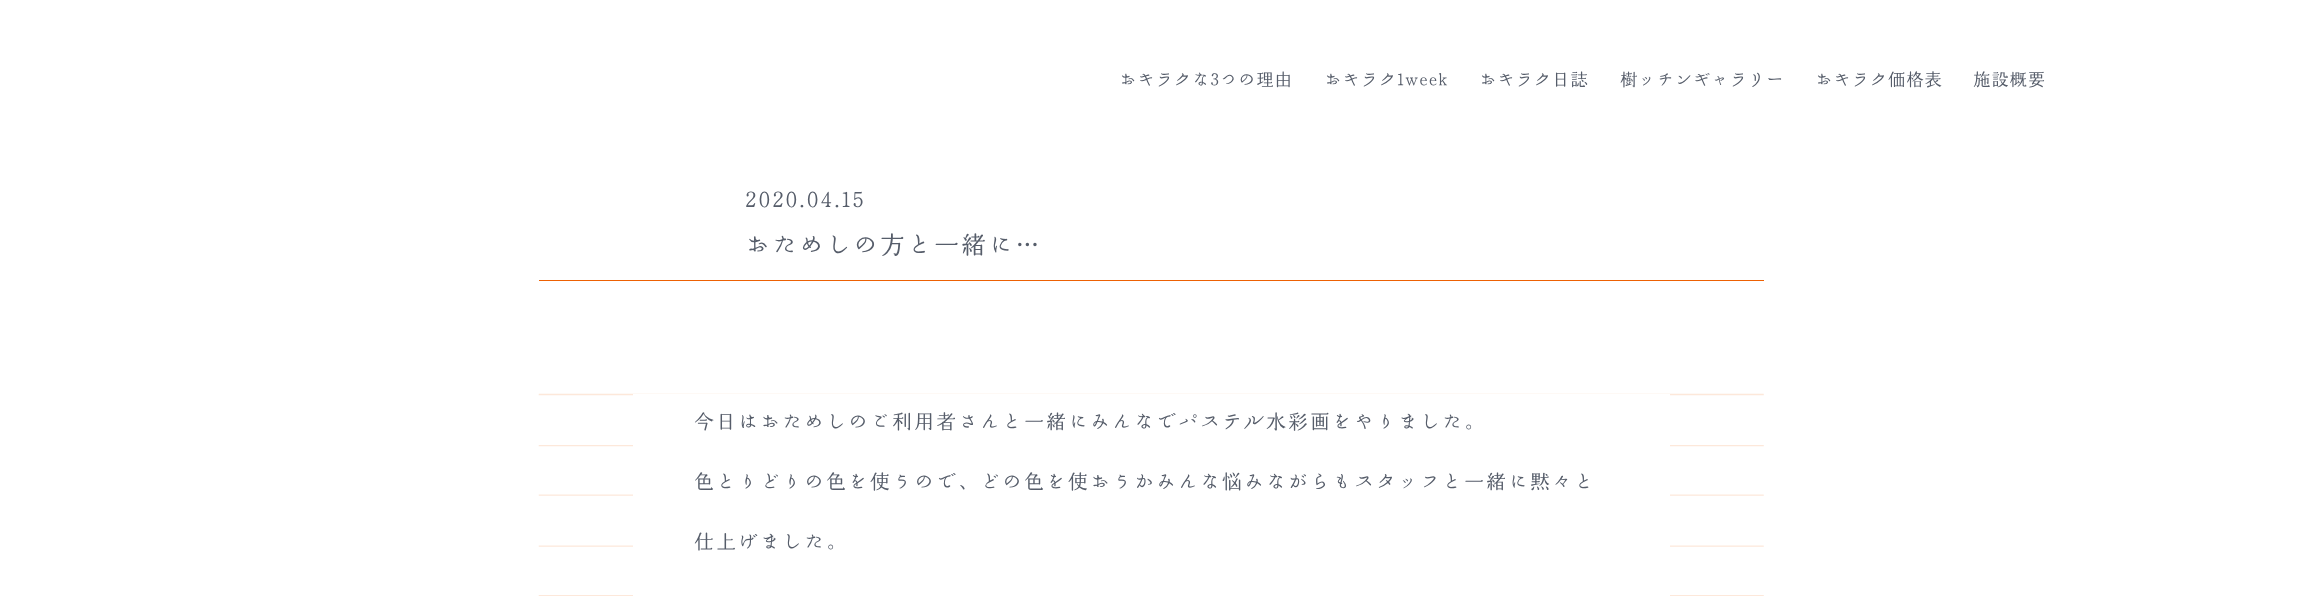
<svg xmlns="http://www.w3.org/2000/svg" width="2302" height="596">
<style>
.a{font:17.5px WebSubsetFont;letter-spacing:0.75px;fill:#565d6a}
.b{font:22.5px WebSubsetFont;letter-spacing:2px;fill:#565d6a}
.c{font:25px WebSubsetFont;letter-spacing:2px;fill:#565d6a}
.d{font:20px WebSubsetFont;letter-spacing:2px;fill:#565d6a}
</style>
<rect width="100%" height="100%" fill="#fff"/>
<path fill="#ed6103" d="M539 280h1225v1H539z"/>
<image href="1.png" x="538" y="393" width="1226" height="203"/>
<path fill="#fff" d="M633 394h1037v202H633z"/>
<text class="a" x="1119" y="86">おキラクな3つの理由</text>
<text class="a" x="1324" y="86">おキラク1week</text>
<text class="a" x="1479" y="86">おキラク日誌</text>
<text class="a" x="1620" y="86">樹ッチンギャラリー</text>
<text class="a" x="1815" y="86">おキラク価格表</text>
<text class="a" x="1973" y="86">施設概要</text>
<text class="b" x="745" y="208">2020.04.15</text>
<text class="c" x="745" y="254">おためしの方と一緒に…</text>
<text class="d" x="694" y="429">今日はおためしのご利用者さんと一緒にみんなでパステル水彩画をやりました。</text>
<text class="d" x="694" y="489">色とりどりの色を使うので、どの色を使おうかみんな悩みながらもスタッフと一緒に黙々と</text>
<text class="d" x="694" y="549">仕上げました。</text>
</svg>
